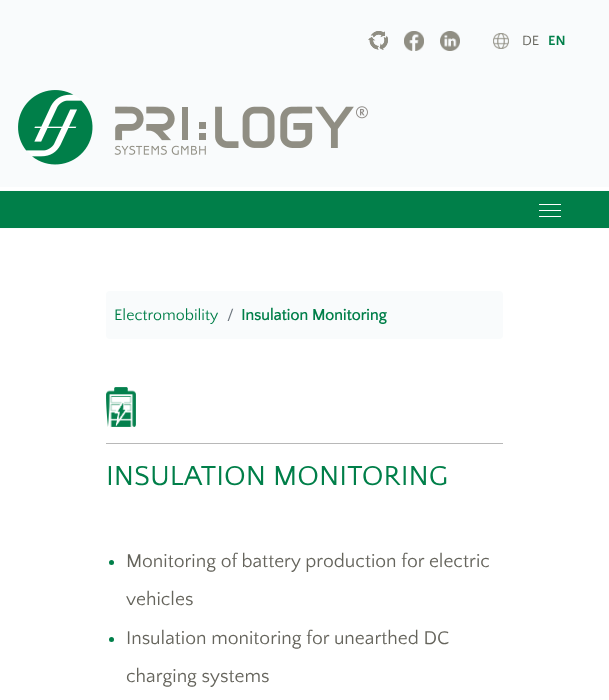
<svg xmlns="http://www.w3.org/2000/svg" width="609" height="700">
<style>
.a{font:14px Quattrocento Sans;fill:#65645c}
.b{font:bold 14px Quattrocento Sans;fill:#007f49}
.c{font:16px Quattrocento Sans;fill:#007f49}
.d{font:16px Quattrocento Sans;fill:#6c757d}
.e{font:bold 16px 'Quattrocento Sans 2';fill:#007f49}
.f{font:28.75px Quattrocento Sans;fill:#007f49}
.g{font:19.25px Quattrocento Sans;fill:#65645c}
</style>
<rect width="100%" height="100%" fill="#fff"/>
<path fill="#f9fbfc" d="M0 0h609v187H0z"/>
<image href="1.png" x="368" y="31" width="20" height="19"/>
<image href="2.png" x="404" y="31" width="20" height="20"/>
<image href="3.png" x="440" y="31" width="20" height="20"/>
<image href="4.png" x="493" y="33" width="16" height="16"/>
<image href="5.png" x="18" y="90" width="350" height="75"/>
<path fill="#007f49" d="M0 191h609v37H0z"/>
<path fill="#f9fbfc" d="M0 190h609v1H0z"/>
<path fill="#f9fbfc" d="M0 228h609v1H0z"/>
<path fill="#fff" d="M539 204h22v1H539z"/>
<path fill="#fff" d="M539 210h22v1H539z"/>
<path fill="#fff" d="M539 216h22v1H539z"/>
<rect fill="#f9fbfc" x="106" y="291" width="397" height="48" rx="4"/>
<image href="6.png" x="106" y="387" width="30" height="40"/>
<path fill="#b8b8b8" d="M106 443h397v1H106z"/>
<circle fill="#007f49" cx="111.5" cy="562.5" r="2.5"/>
<circle fill="#007f49" cx="111.5" cy="639.5" r="2.5"/>
<text class="a" x="522" y="45">DE</text>
<text class="b" x="548" y="45">EN</text>
<text class="c" x="114" y="320">Electromobility</text>
<text class="d" x="227" y="320">/</text>
<text class="e" x="241" y="320">Insulation Monitoring</text>
<text class="f" x="106" y="485">INSULATION MONITORING</text>
<text class="g" x="126" y="567">Monitoring of battery production for electric</text>
<text class="g" x="126" y="605">vehicles</text>
<text class="g" x="126" y="644">Insulation monitoring for unearthed DC</text>
<text class="g" x="126" y="682">charging systems</text>
</svg>
